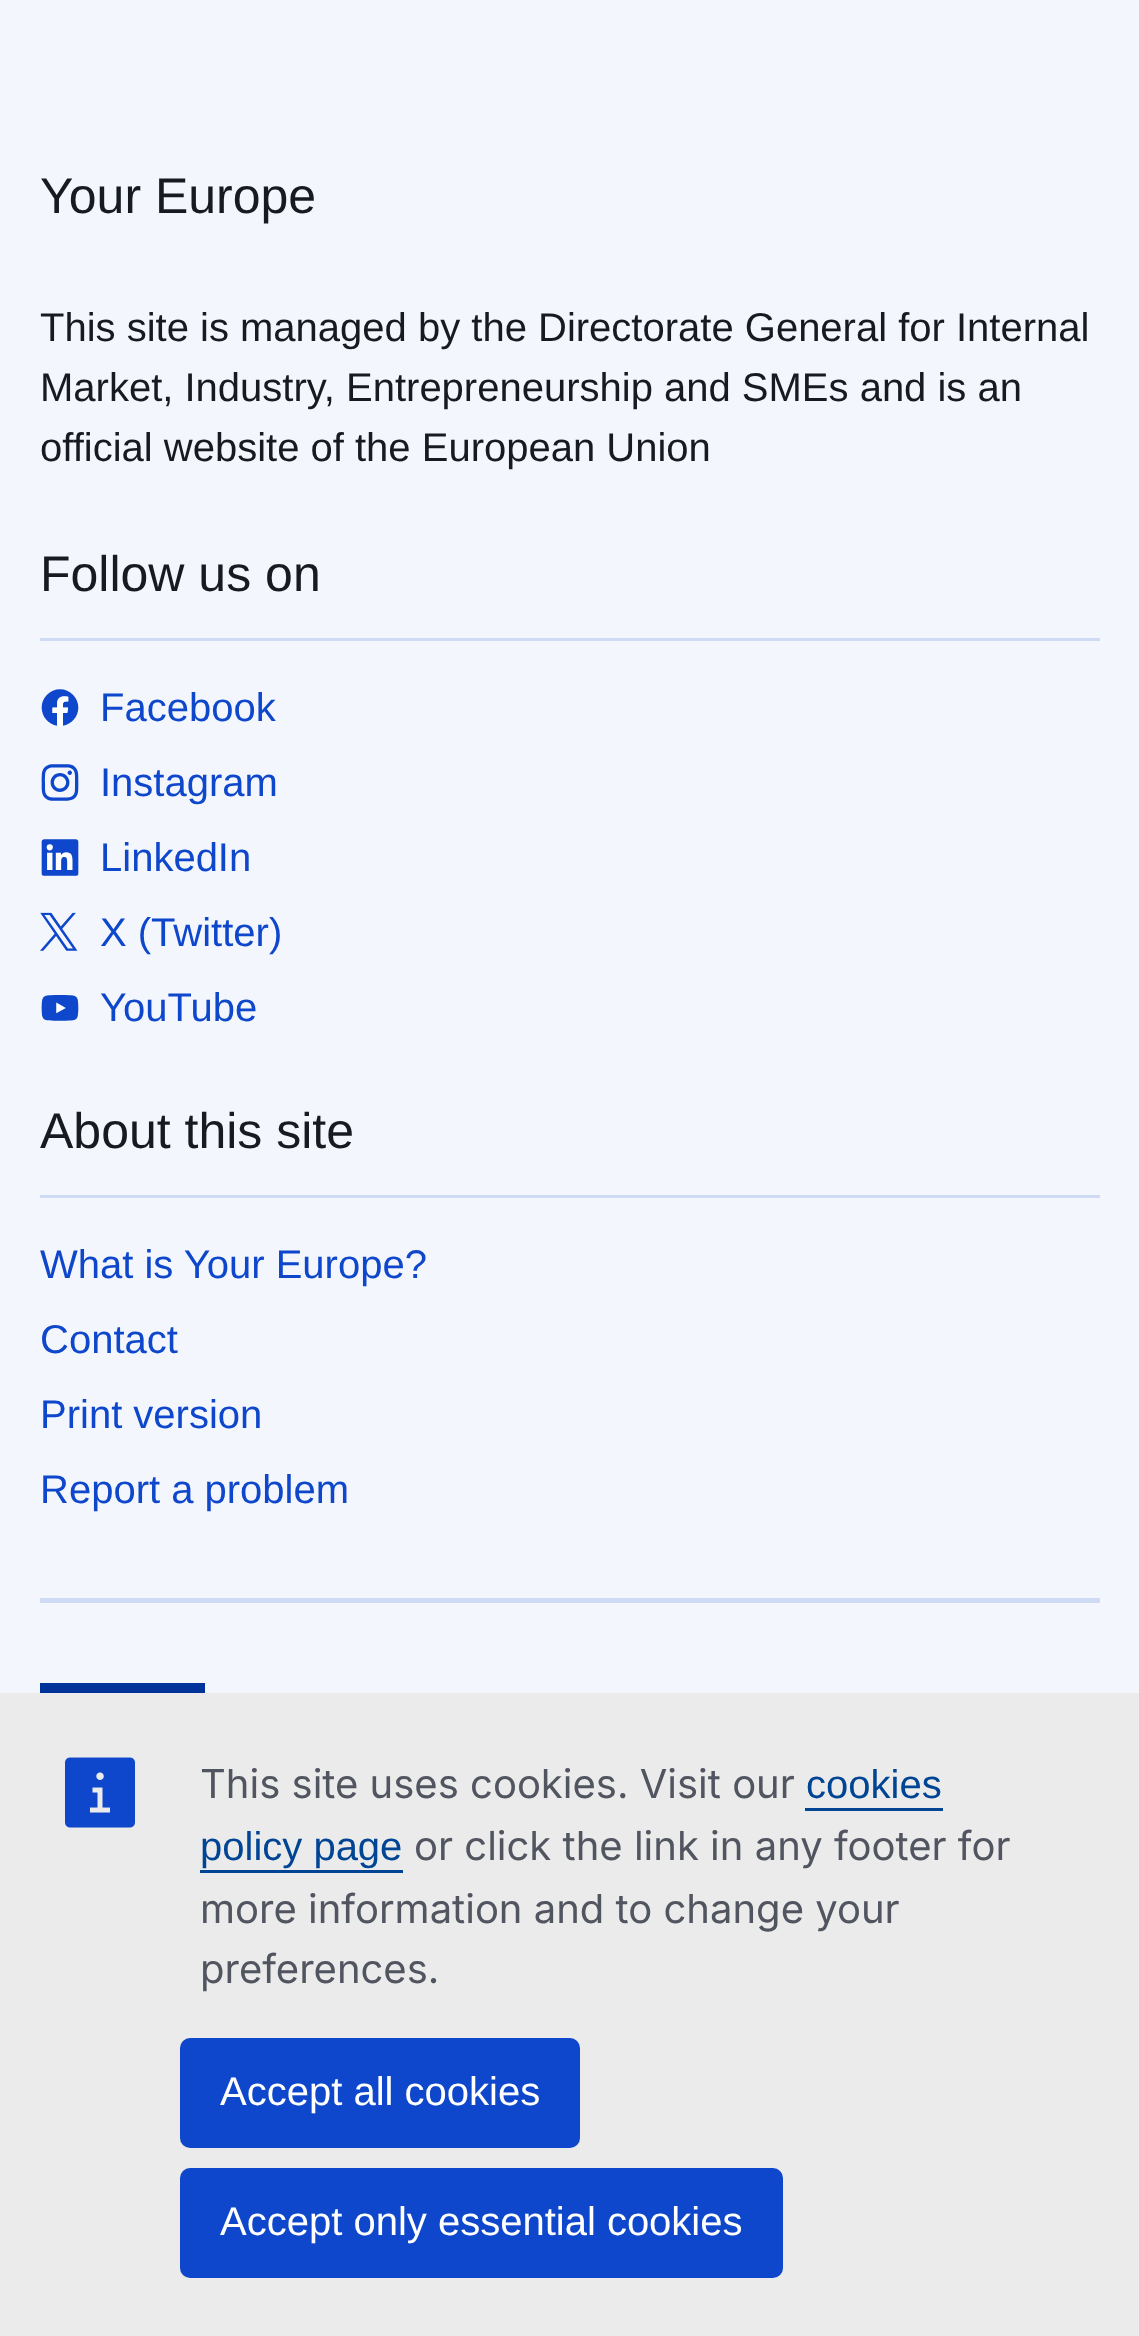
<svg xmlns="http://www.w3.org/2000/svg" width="1139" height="2336">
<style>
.a{font:50px Liberation Sans;fill:#171a22}
.b{font:40px Liberation Sans;fill:#171a22}
.c{font:40px Liberation Sans;fill:#0e47cb}
.d{font:40px Inter;fill:#515560}
.e{font:40px Liberation Sans;fill:#004494}
.f{font:40px Liberation Sans;fill:#fff}
</style>
<rect width="100%" height="100%" fill="#f3f6fc"/>
<path fill="#cfdaf5" d="M40 638h1060v3H40z"/>
<image href="1.png" x="41" y="689" width="38" height="37"/>
<image href="2.png" x="41" y="764" width="38" height="37"/>
<image href="3.png" x="41" y="839" width="38" height="37"/>
<image href="4.png" x="40" y="912" width="38" height="39"/>
<image href="5.png" x="41" y="995" width="38" height="26"/>
<path fill="#cfdaf5" d="M40 1195h1060v3H40z"/>
<path fill="#cfdaf5" d="M40 1598h1060v5H40z"/>
<image href="6.png" x="40" y="1683" width="165" height="10"/>
<path fill="#ebebeb" d="M0 1693h1139v643H0z"/>
<image href="7.png" x="65" y="1757" width="70" height="71"/>
<path fill="#004494" d="M805 1808h138v3H805z"/>
<path fill="#004494" d="M200 1870h203v3H200z"/>
<rect fill="#0e47cb" x="180" y="2038" width="400" height="110" rx="10"/>
<rect fill="#0e47cb" x="180" y="2168" width="603" height="110" rx="10"/>
<text class="a" x="40" y="213">Your Europe</text>
<text class="b" x="40" y="341">This site is managed by the Directorate General for Internal</text>
<text class="b" x="40" y="401">Market, Industry, Entrepreneurship and SMEs and is an</text>
<text class="b" x="40" y="461">official website of the European Union</text>
<text class="a" x="40" y="591">Follow us on</text>
<text class="c" x="100" y="721">Facebook</text>
<text class="c" x="100" y="796">Instagram</text>
<text class="c" x="100" y="871">LinkedIn</text>
<text class="c" x="100" y="946">X (Twitter)</text>
<text class="c" x="100" y="1021">YouTube</text>
<text class="a" x="40" y="1148">About this site</text>
<text class="c" x="40" y="1278">What is Your Europe?</text>
<text class="c" x="40" y="1353">Contact</text>
<text class="c" x="40" y="1428">Print version</text>
<text class="c" x="40" y="1503">Report a problem</text>
<text class="d" x="200" y="1798">This site uses cookies. Visit our</text>
<text class="e" x="806" y="1798">cookies</text>
<text class="e" x="200" y="1860">policy page</text>
<text class="d" x="414" y="1860">or click the link in any footer for</text>
<text class="d" x="200" y="1923">more information and to change your</text>
<text class="d" x="200" y="1983">preferences.</text>
<text class="f" x="220" y="2105">Accept all cookies</text>
<text class="f" x="220" y="2235">Accept only essential cookies</text>
</svg>
